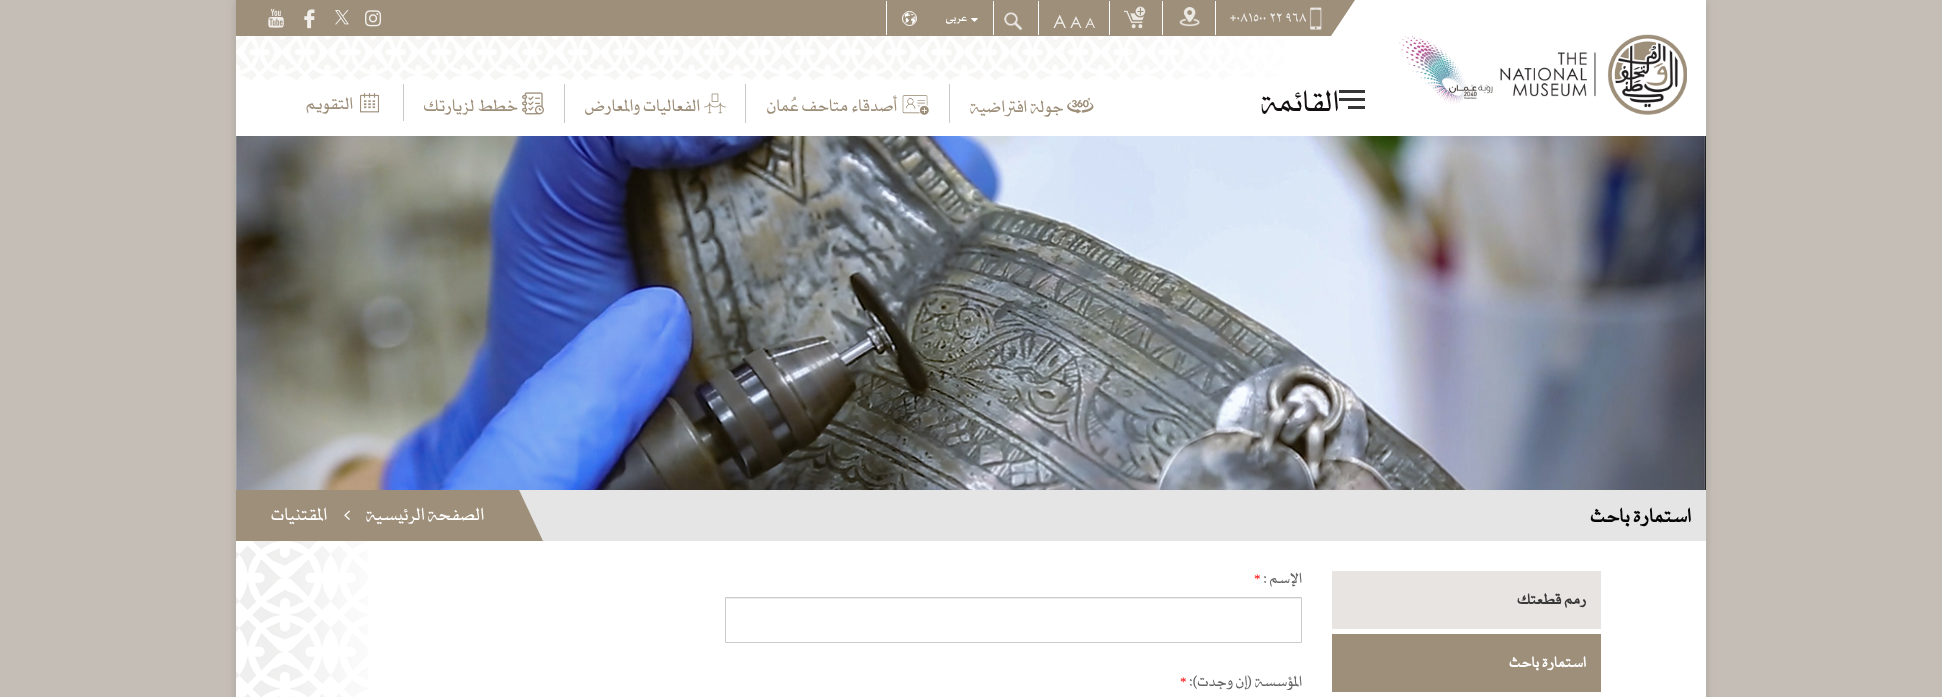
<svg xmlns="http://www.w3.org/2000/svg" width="1942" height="697">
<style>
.a{font:16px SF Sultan;fill:#f0eeeb}
.b{font:14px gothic;fill:#f0eeeb}
.c{font:16px gothic;fill:#f0eeeb}
.d{font:18px gothic;fill:#f0eeeb}
.e{font:12px SF Sultan;direction:rtl;fill:#fff}
.f{font:32px SF Sultan;direction:rtl;fill:#130e0f}
.g{font:18.25px SF Sultan;direction:rtl;fill:#9e8f7a}
.h{font:bold 21px SF Sultan;direction:rtl;fill:#050505}
.i{font:19px SF Sultan;direction:rtl;fill:#fff}
.j{font:bold 16px SF Sultan;direction:rtl;fill:#393939}
.k{font:bold 16px SF Sultan;direction:rtl;fill:#fff}
.l{font:16px SF Sultan;direction:rtl;fill:#656565}
.m{font:13px Liberation Serif;fill:#f00}
</style>
<defs>
<clipPath id="clip1"><path d="M925 12h42v12H925z"/></clipPath>
</defs>
<rect width="100%" height="100%" fill="#c5beb6"/>
<path fill="#a8a39d" filter="blur(5px)" d="M236 0h1470v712H236z"/>
<path fill="#fff" d="M236 0h1470v697H236z"/>
<path fill="#9e8f7a" d="M236 0h1095v36H236z"/>
<path fill="#9e8f7a" d="M1331 0v36l24-36z"/>
<path fill="#fff" d="M1215 1h1v34H1215z"/>
<image href="1.png" x="1309" y="7" width="13" height="23"/>
<path fill="#fff" d="M1162 1h1v34H1162z"/>
<image href="2.png" x="1179" y="7" width="21" height="20"/>
<path fill="#fff" d="M1109 1h1v34H1109z"/>
<image href="3.png" x="1124" y="6" width="22" height="23"/>
<path fill="#fff" d="M1038 1h1v34H1038z"/>
<path fill="#fff" d="M993 1h1v34H993z"/>
<image href="4.png" x="1004" y="12" width="19" height="19"/>
<path fill="#fff" d="M886 1h1v34H886z"/>
<image href="5.png" x="971" y="18" width="7" height="4"/>
<image href="6.png" x="902" y="11" width="15" height="15"/>
<circle fill="none" stroke="#fff" cx="909.5" cy="18.5" r="7"/>
<image href="7.png" x="365" y="10" width="17" height="17"/>
<image href="8.png" x="335" y="10" width="14" height="15"/>
<image href="9.png" x="304" y="9" width="11" height="20"/>
<image href="10.png" x="268" y="8" width="16" height="20"/>
<image href="11.png" x="236" y="36" width="1049" height="44"/>
<image href="12.png" x="1399" y="34" width="288" height="81"/>
<image href="13.png" x="1339" y="90" width="26" height="19"/>
<image href="14.png" x="1067" y="97" width="27" height="17"/>
<path fill="#cac9c7" d="M949 84h1v39H949z"/>
<image href="15.png" x="902" y="95" width="27" height="20"/>
<path fill="#cac9c7" d="M745 84h1v39H745z"/>
<image href="16.png" x="704" y="93" width="22" height="21"/>
<path fill="#cac9c7" d="M564 84h1v39H564z"/>
<image href="17.png" x="522" y="92" width="22" height="23"/>
<path fill="#cac9c7" d="M403 84h1v37H403z"/>
<image href="18.png" x="360" y="93" width="19" height="20"/>
<image href="19.png" x="236" y="136" width="1470" height="354"/>
<path fill="#e5e5e5" d="M519 490h1187v51H519z"/>
<path fill="#9e8f7a" d="M236 490h283v51H236z"/>
<path fill="#9e8f7a" d="M519 490v51h24z"/>
<image href="20.png" x="344" y="510" width="6" height="10"/>
<image href="21.png" x="236" y="541" width="132" height="156"/>
<path fill="#e8e4e1" d="M1332 571h269v58H1332z"/>
<path fill="#9e8f7a" d="M1332 634h269v58H1332z"/>
<path fill="#ececec" d="M726 598h575v1H726z"/>
<path fill="none" stroke="#ccc" d="M725.5 597.5h576v45H725.5z"/>
<text class="a" x="1230" y="22">+٩٦٨ ٢٢ ٠٨١٥٠٠</text>
<text class="b" x="1085" y="28">A</text>
<text class="c" x="1070" y="28">A</text>
<text class="d" x="1053" y="28">A</text>
<g clip-path="url(#clip1)">
<text class="e" x="967" y="21">عربي</text>
</g>
<text class="f" x="1339" y="111">القائمة</text>
<text class="g" x="1064" y="112">جولة افتراضية</text>
<text class="g" x="897" y="111">أصدقاء متاحف عُمان</text>
<text class="g" x="700" y="111">الفعاليات والمعارض</text>
<text class="g" x="518" y="111">خطط لزيارتك</text>
<text class="g" x="353" y="109">التقويم</text>
<text class="h" x="1691" y="522">استمارة باحث</text>
<text class="i" x="484" y="520">الصفحة الرئيسية</text>
<text class="i" x="327" y="520">المقتنيات</text>
<text class="j" x="1586" y="604">رمم قطعتك</text>
<text class="k" x="1586" y="667">استمارة باحث</text>
<text class="l" x="1302" y="583">الإسم :</text>
<text class="m" x="1254" y="583">*</text>
<text class="l" x="1302" y="686">المؤسسة (إن وجدت):</text>
<text class="m" x="1180" y="686">*</text>
</svg>
